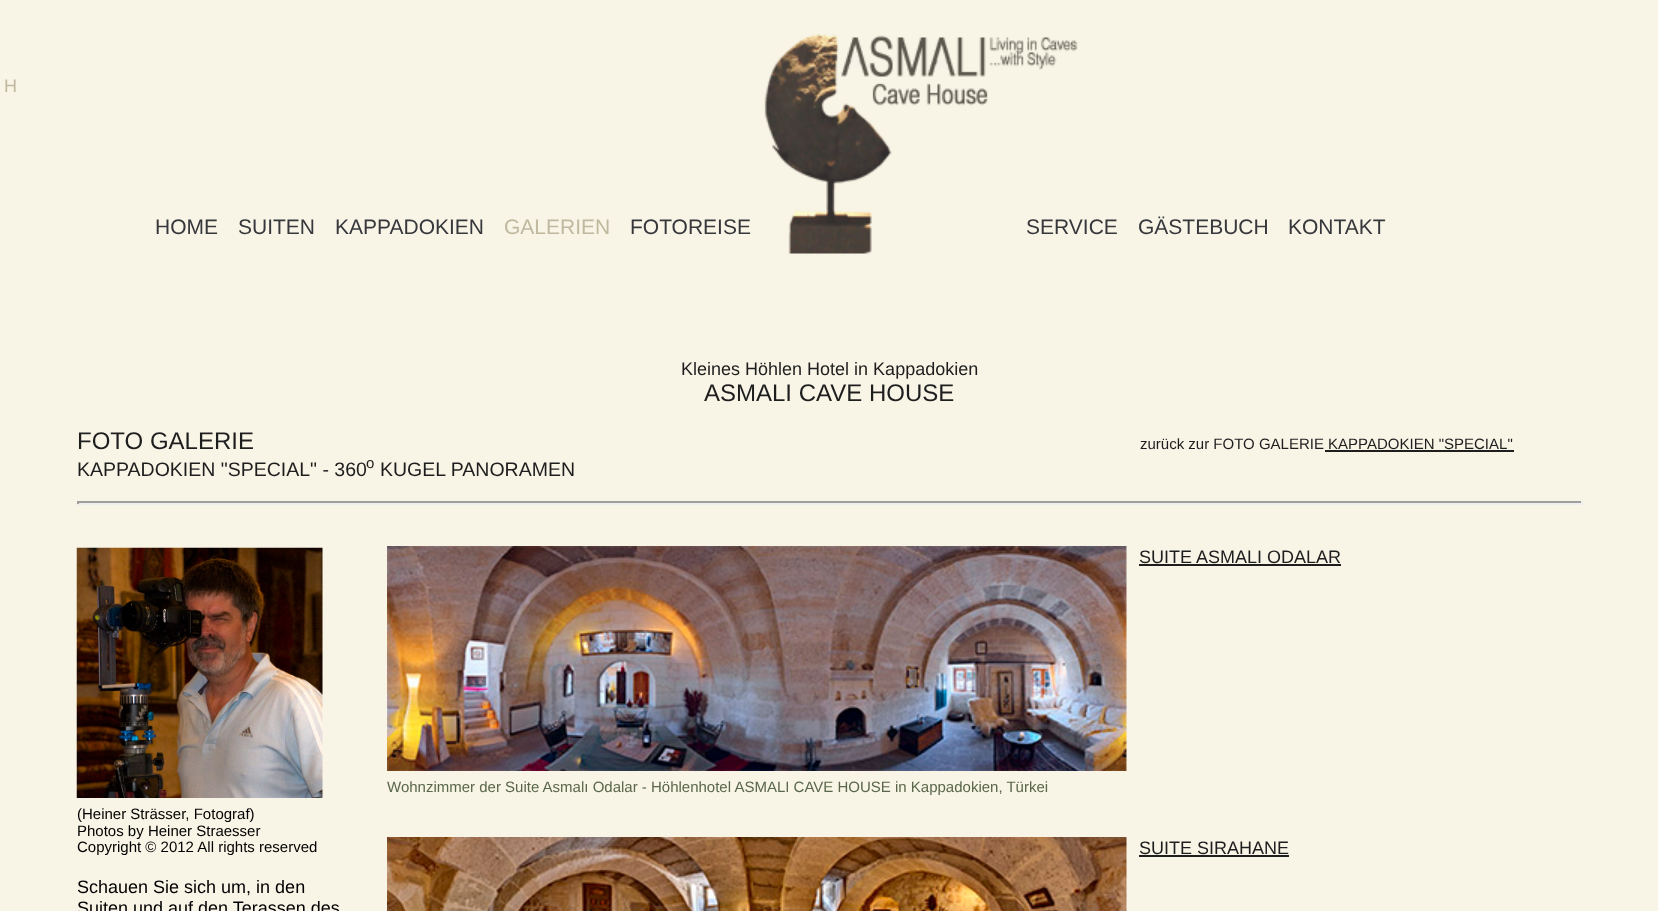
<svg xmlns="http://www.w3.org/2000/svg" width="1658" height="911">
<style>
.a{font:18px Liberation Sans;fill:#c0b9a0}
.b{font:21px Liberation Sans;fill:#37383c}
.c{font:21px Liberation Sans;fill:#c0b9a0}
.d{font:18px Liberation Sans;fill:#1e1e1e}
.e{font:24px Liberation Sans;fill:#1e1e1e}
.f{font:15px Liberation Sans;fill:#1e1e1e}
.g{font:19.5px Liberation Sans;fill:#1e1e1e}
.h{font:15px Liberation Sans;fill:#000}
.i{font:18px Liberation Sans;fill:#000}
.j{font:15px Liberation Sans;fill:#5a674c}
</style>
<rect width="100%" height="100%" fill="#f8f4e6"/>
<image href="1.png" x="764" y="34" width="314" height="220"/>
<path fill="#1e1e1e" d="M1325 450h189v2H1325z"/>
<path fill="#9f9f9f" d="M77 501h1506v2H77z"/>
<path fill="#eee" d="M1581 501h2v3H1581z"/>
<path fill="#eee" d="M77 503h1506v2H77z"/>
<path fill="#9f9f9f" d="M77 501h2v3H77z"/>
<image href="2.png" x="76" y="547" width="247" height="251"/>
<image href="3.png" x="387" y="546" width="740" height="225"/>
<path fill="#1e1e1e" d="M1139 564h202v2H1139z"/>
<image href="4.png" x="387" y="837" width="740" height="74"/>
<path fill="#1e1e1e" d="M1139 855h150v2H1139z"/>
<text class="a" x="4" y="92">H</text>
<text class="b" x="155" y="234">HOME</text>
<text class="b" x="238" y="234">SUITEN</text>
<text class="b" x="335" y="234">KAPPADOKIEN</text>
<text class="c" x="504" y="234">GALERIEN</text>
<text class="b" x="630" y="234">FOTOREISE</text>
<text class="b" x="1026" y="234">SERVICE</text>
<text class="b" x="1138" y="234">GÄSTEBUCH</text>
<text class="b" x="1288" y="234">KONTAKT</text>
<text class="d" x="681" y="375">Kleines Höhlen Hotel in Kappadokien</text>
<text class="e" x="704" y="401">ASMALI CAVE HOUSE</text>
<text class="e" x="77" y="449">FOTO GALERIE</text>
<text class="f" x="1140" y="449">zurück zur FOTO GALERIE KAPPADOKIEN "SPECIAL"</text>
<text class="g" x="77" y="476">KAPPADOKIEN "SPECIAL" - 360</text>
<text class="f" x="366" y="468">o</text>
<text class="g" x="380" y="476">KUGEL PANORAMEN</text>
<text class="h" x="77" y="819">(Heiner Strässer, Fotograf)</text>
<text class="h" x="77" y="836">Photos by Heiner Straesser</text>
<text class="h" x="77" y="852">Copyright © 2012 All rights reserved</text>
<text class="i" x="77" y="893">Schauen Sie sich um, in den</text>
<text class="i" x="77" y="914">Suiten und auf den Terassen des</text>
<text class="d" x="1139" y="563">SUITE ASMALI ODALAR</text>
<text class="j" x="387" y="792">Wohnzimmer der Suite Asmalı Odalar - Höhlenhotel ASMALI CAVE HOUSE in Kappadokien, Türkei</text>
<text class="d" x="1139" y="854">SUITE SIRAHANE</text>
</svg>
